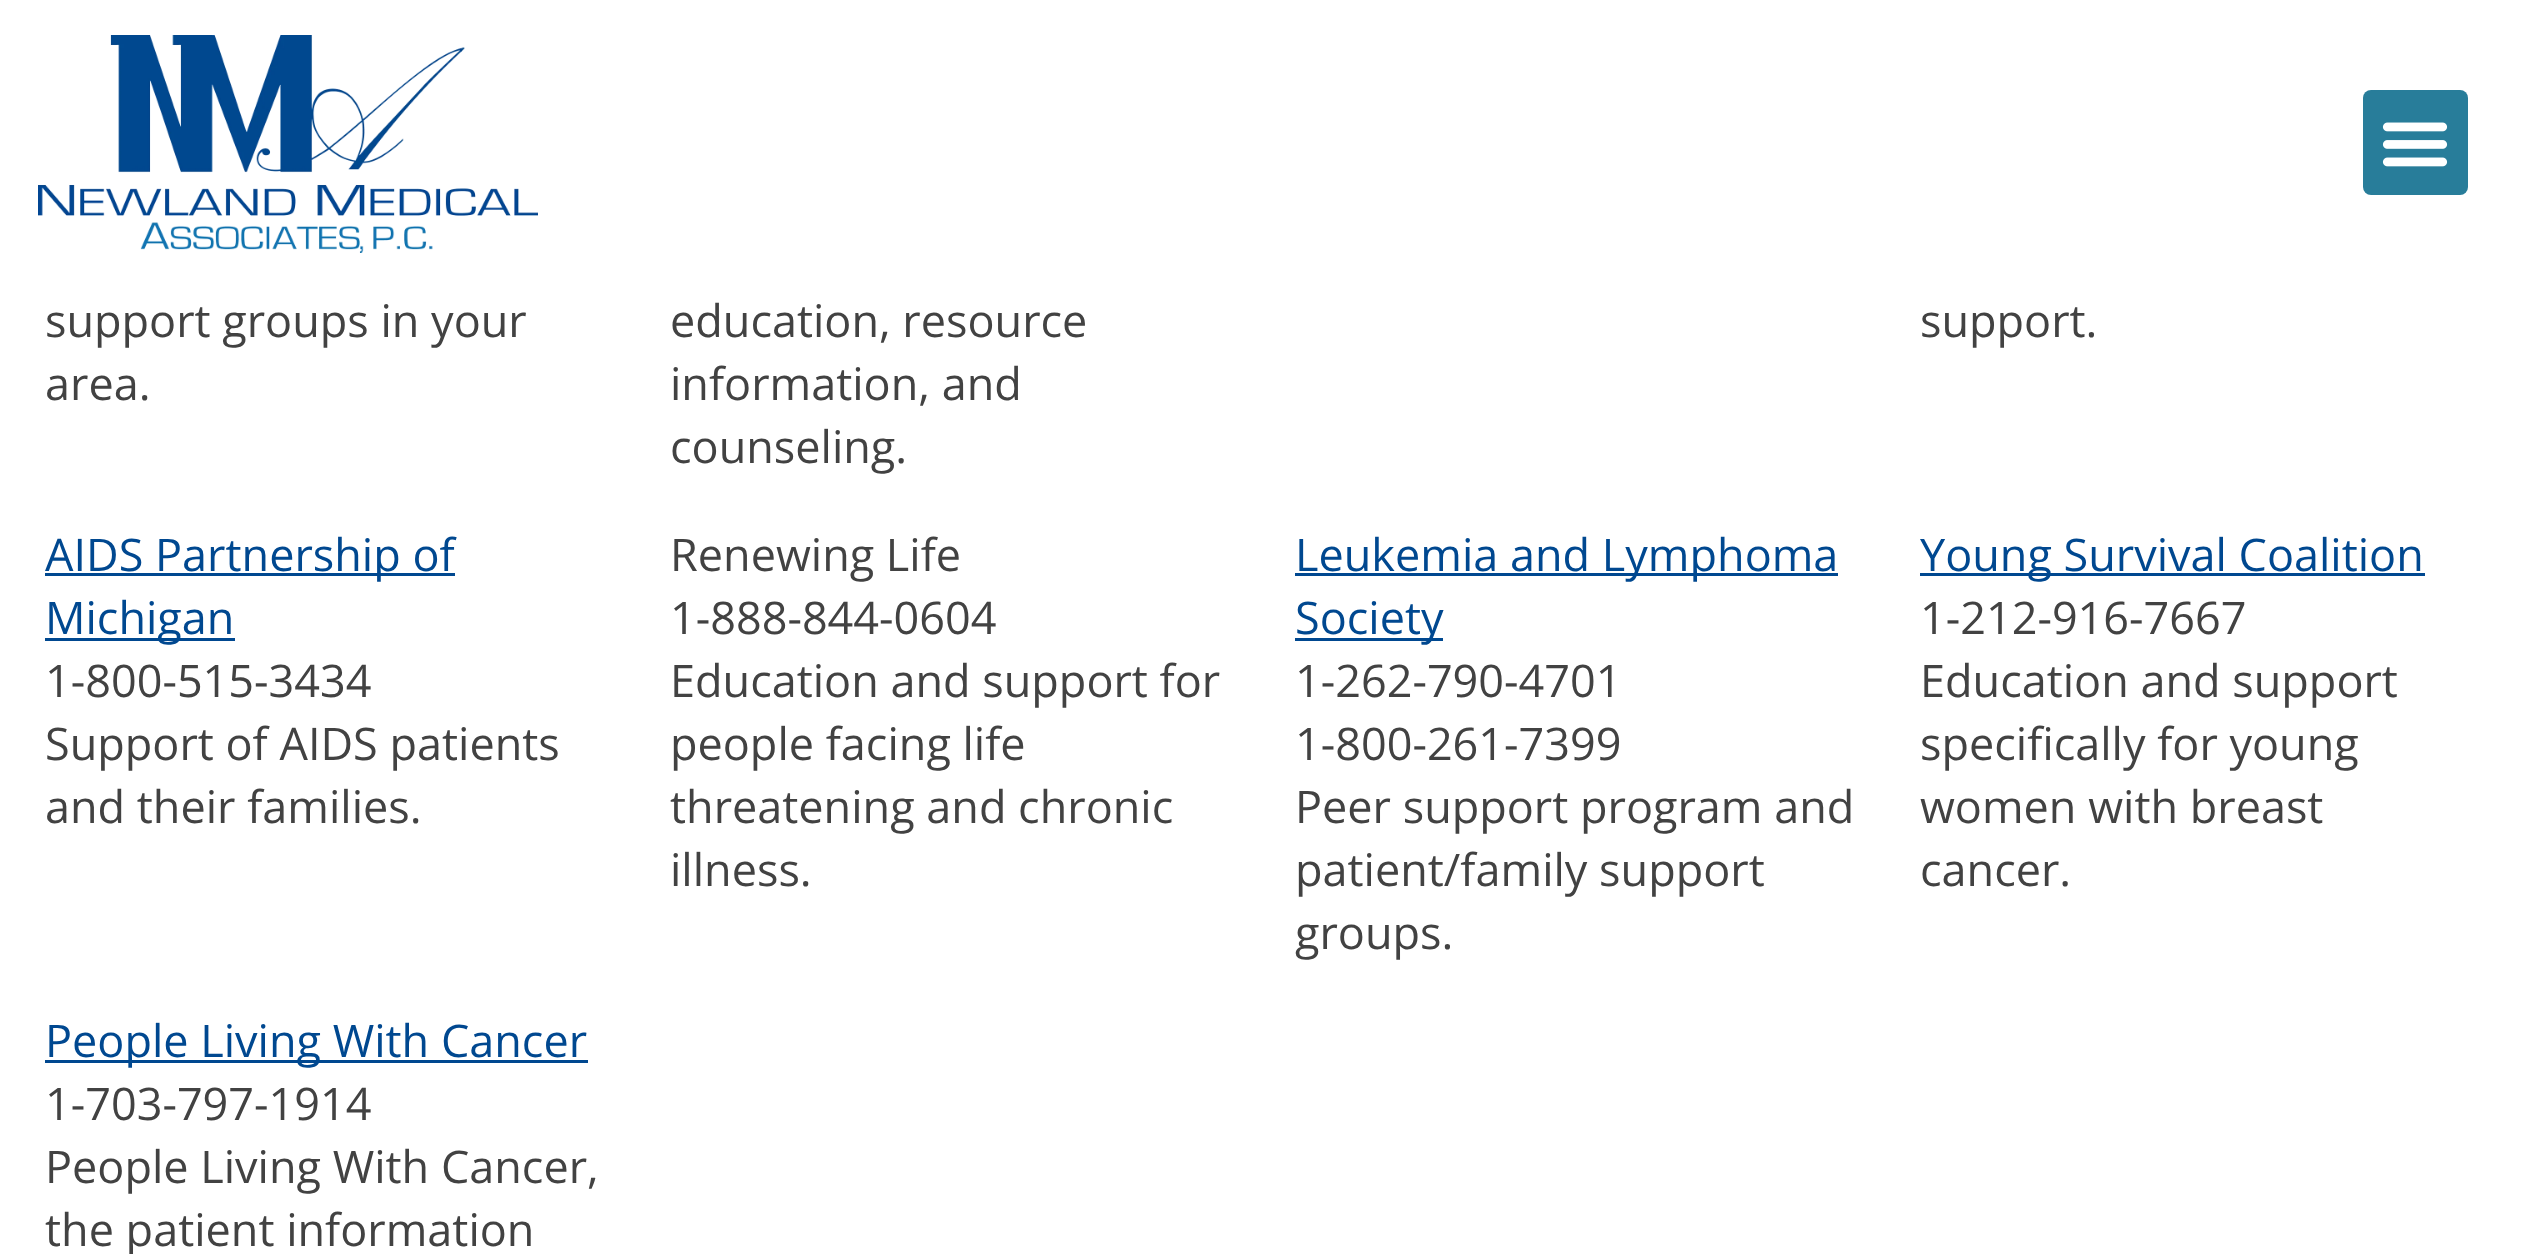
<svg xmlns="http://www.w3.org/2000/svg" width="2529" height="1254">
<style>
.a{font:45px Open Sans;fill:#424242}
.b{font:45px Open Sans;fill:#004890}
</style>
<rect width="100%" height="100%" fill="#fff"/>
<image href="1.png" x="38" y="35" width="500" height="218"/>
<rect fill="#287d9a" x="2363" y="90" width="105" height="105" rx="8"/>
<image href="2.png" x="2382" y="122" width="66" height="45"/>
<path fill="#004890" d="M45 573h410v3H45z"/>
<path fill="#004890" d="M45 638h190v3H45z"/>
<path fill="#004890" d="M1295 573h543v3H1295z"/>
<path fill="#004890" d="M1295 638h148v3H1295z"/>
<path fill="#004890" d="M1920 573h505v3H1920z"/>
<path fill="#004890" d="M45 1060h543v3H45z"/>
<text class="a" x="45" y="337">support groups in your</text>
<text class="a" x="45" y="400">area.</text>
<text class="a" x="670" y="337">education, resource</text>
<text class="a" x="670" y="400">information, and</text>
<text class="a" x="670" y="463">counseling.</text>
<text class="a" x="1920" y="337">support.</text>
<text class="b" x="45" y="571">AIDS Partnership of</text>
<text class="b" x="45" y="634">Michigan</text>
<text class="a" x="45" y="697">1-800-515-3434</text>
<text class="a" x="45" y="760">Support of AIDS patients</text>
<text class="a" x="45" y="823">and their families.</text>
<text class="a" x="670" y="571">Renewing Life</text>
<text class="a" x="670" y="634">1-888-844-0604</text>
<text class="a" x="670" y="697">Education and support for</text>
<text class="a" x="670" y="760">people facing life</text>
<text class="a" x="670" y="823">threatening and chronic</text>
<text class="a" x="670" y="886">illness.</text>
<text class="b" x="1295" y="571">Leukemia and Lymphoma</text>
<text class="b" x="1295" y="634">Society</text>
<text class="a" x="1295" y="697">1-262-790-4701</text>
<text class="a" x="1295" y="760">1-800-261-7399</text>
<text class="a" x="1295" y="823">Peer support program and</text>
<text class="a" x="1295" y="886">patient/family support</text>
<text class="a" x="1295" y="949">groups.</text>
<text class="b" x="1920" y="571">Young Survival Coalition</text>
<text class="a" x="1920" y="634">1-212-916-7667</text>
<text class="a" x="1920" y="697">Education and support</text>
<text class="a" x="1920" y="760">specifically for young</text>
<text class="a" x="1920" y="823">women with breast</text>
<text class="a" x="1920" y="886">cancer.</text>
<text class="b" x="45" y="1057">People Living With Cancer</text>
<text class="a" x="45" y="1120">1-703-797-1914</text>
<text class="a" x="45" y="1183">People Living With Cancer,</text>
<text class="a" x="45" y="1246">the patient information</text>
</svg>
